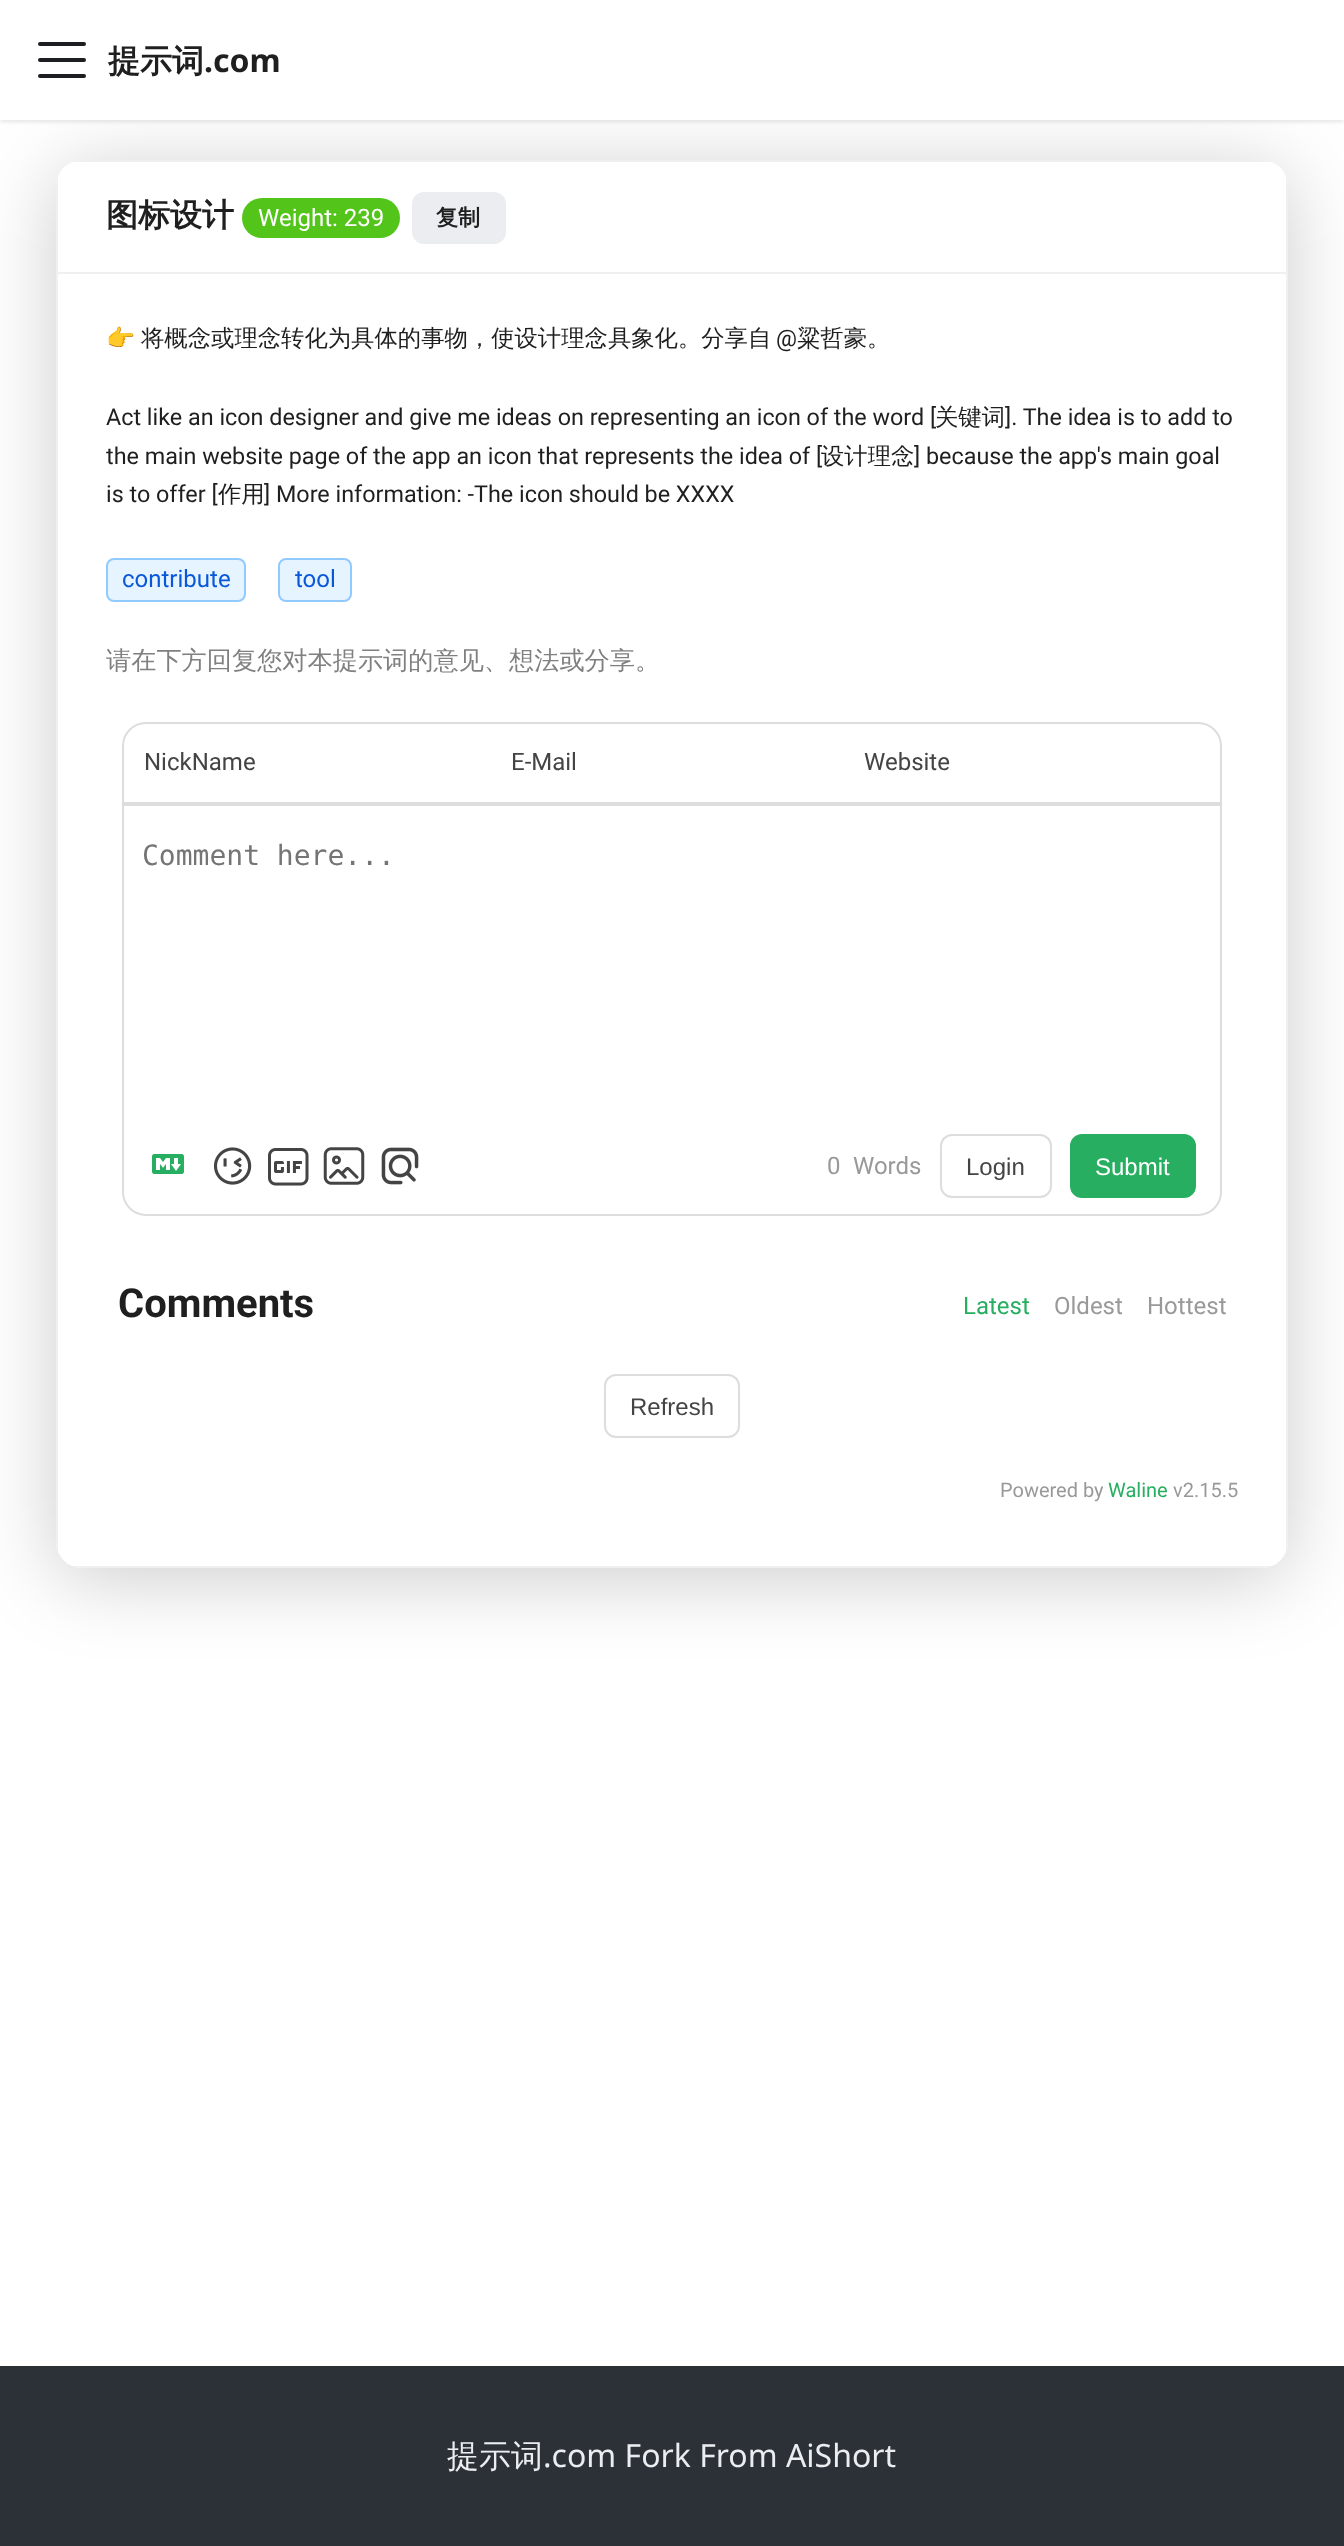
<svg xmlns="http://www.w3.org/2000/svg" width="1344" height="2546">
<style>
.a{font:bold 32px WenQuanYi Zen Hei;fill:#1f1f1f}
.b{font:bold 32px Noto Sans;fill:#1f1f1f}
.c{font:24px Roboto;fill:#fff}
.d{font:bold 22px WenQuanYi Zen Hei;fill:#1f1f1f}
.e{font:23.35px Noto Color Emoji;fill:#1f1f1f}
.f{font:500 23.35px WenQuanYi Zen Hei;fill:#1f1f1f}
.g{font:23.35px Roboto;fill:#1f1f1f}
.h{font:24px Roboto;fill:#0958d9}
.i{font:500 25.2px WenQuanYi Zen Hei;fill:#808080}
.j{font:24px Roboto;fill:#444}
.k{font:28px DejaVu Sans Mono;fill:#757575}
.l{font:24px Roboto;fill:#999}
.m{font:24px Liberation Sans;fill:#444}
.n{font:24px Liberation Sans;fill:#fff}
.o{font:bold 40px Roboto;fill:#1f1f1f}
.p{font:24px Roboto;fill:#27ae60}
.q{font:20px Roboto;fill:#999}
.r{font:20px Roboto;fill:#27ae60}
.s{font:500 32px WenQuanYi Zen Hei;fill:#ebedf0}
.t{font:32px Noto Sans;fill:#ebedf0}
</style>
<rect width="100%" height="100%" fill="#fff"/>
<path fill="#0000001a" filter="blur(2px)" d="M0 2h1344v120H0z"/>
<rect fill="#00000033" filter="blur(40px)" x="56" y="170" width="1232" height="1408" rx="26"/>
<path fill="#fff" d="M0 0h1344v120H0z"/>
<path fill="none" stroke="#1c1e21" stroke-width="4" stroke-linecap="round" d="M40 44h44m-44 16h44m-44 16h44"/>
<rect fill="#fff" x="56" y="160" width="1232" height="1408" rx="26"/>
<path fill="#f0f0f0" fill-rule="evenodd" d="M56 186v1356c0 4 1 7 2 10v-1376c-1 3-2 6-2 10zm16-24h1200c-3-1-6-2-10-2h-1180c-4 0-7 1-10 2zm1216 24c0-4-1-7-2-10v1376c1-3 2-6 2-10zm-26 1382c4 0 7-1 10-2h-1200c3 1 6 2 10 2z"/>
<path fill="#f0f0f0" d="M58 272h1228v2H58z"/>
<rect fill="#52c41a" x="242" y="198" width="158" height="40" rx="20"/>
<rect fill="#ebedf0" x="412" y="192" width="94" height="52" rx="12"/>
<rect fill="#e6f4ff" stroke="#91caff" stroke-width="2" x="107" y="559" width="138" height="42" rx="7"/>
<rect fill="#e6f4ff" stroke="#91caff" stroke-width="2" x="279" y="559" width="72" height="42" rx="7"/>
<rect fill="none" stroke="#ddd" stroke-width="2" x="123" y="723" width="1098" height="492" rx="23"/>
<path fill="#ddd" d="M124 802h1096v4H124z"/>
<image href="1.png" x="152" y="1154" width="32" height="20"/>
<image href="2.png" x="213" y="1147" width="39" height="38"/>
<image href="3.png" x="268" y="1148" width="41" height="38"/>
<image href="4.png" x="323" y="1147" width="42" height="38"/>
<image href="5.png" x="381" y="1147" width="38" height="38"/>
<rect fill="none" stroke="#ddd" stroke-width="2" x="941" y="1135" width="110" height="62" rx="11"/>
<rect fill="#27ae60" stroke="#27ae60" stroke-width="2" x="1071" y="1135" width="124" height="62" rx="11"/>
<rect fill="none" stroke="#ddd" stroke-width="2" x="605" y="1375" width="134" height="62" rx="11"/>
<path fill="#2b3137" d="M0 2366h1344v180H0z"/>
<text class="a" x="108" y="72">提示词</text>
<text class="b" x="204" y="72">.com</text>
<text class="a" x="106" y="226">图标设计</text>
<text class="c" x="258" y="226">Weight: 239</text>
<text class="d" x="436" y="225">复制</text>
<text class="e" x="106" y="346">👉</text>
<text class="f" x="141" y="346">将概念或理念转化为具体的事物，使设计理念具象化。分享自</text>
<text class="g" x="776" y="346">@</text>
<text class="f" x="797" y="346">粱哲豪。</text>
<text class="g" x="106" y="425">Act like an icon designer and give me ideas on representing an icon of the word [</text>
<text class="f" x="935" y="425">关键词</text>
<text class="g" x="1005" y="425">]. The idea is to add to</text>
<text class="g" x="106" y="464">the main website page of the app an icon that represents the idea of [</text>
<text class="f" x="821" y="464">设计理念</text>
<text class="g" x="914" y="464">] because the app's main goal</text>
<text class="g" x="106" y="502">is to offer [</text>
<text class="f" x="218" y="502">作用</text>
<text class="g" x="264" y="502">] More information: -The icon should be XXXX</text>
<text class="h" x="122" y="587">contribute</text>
<text class="h" x="295" y="587">tool</text>
<text class="i" x="106" y="669">请在下方回复您对本提示词的意见、想法或分享。</text>
<text class="j" x="144" y="770">NickName</text>
<text class="j" x="511" y="770">E-Mail</text>
<text class="j" x="864" y="770">Website</text>
<text class="k" x="142" y="865">Comment here...</text>
<text class="l" x="827" y="1174">0</text>
<text class="l" x="853" y="1174">Words</text>
<text class="m" x="966" y="1175">Login</text>
<text class="n" x="1095" y="1175">Submit</text>
<text class="o" x="118" y="1317">Comments</text>
<text class="p" x="963" y="1314">Latest</text>
<text class="l" x="1054" y="1314">Oldest</text>
<text class="l" x="1147" y="1314">Hottest</text>
<text class="m" x="630" y="1415">Refresh</text>
<text class="q" x="1000" y="1497">Powered by</text>
<text class="r" x="1108" y="1497">Waline</text>
<text class="q" x="1173" y="1497">v2.15.5</text>
<text class="s" x="447" y="2467">提示词</text>
<text class="t" x="543" y="2467">.com Fork From AiShort</text>
</svg>
